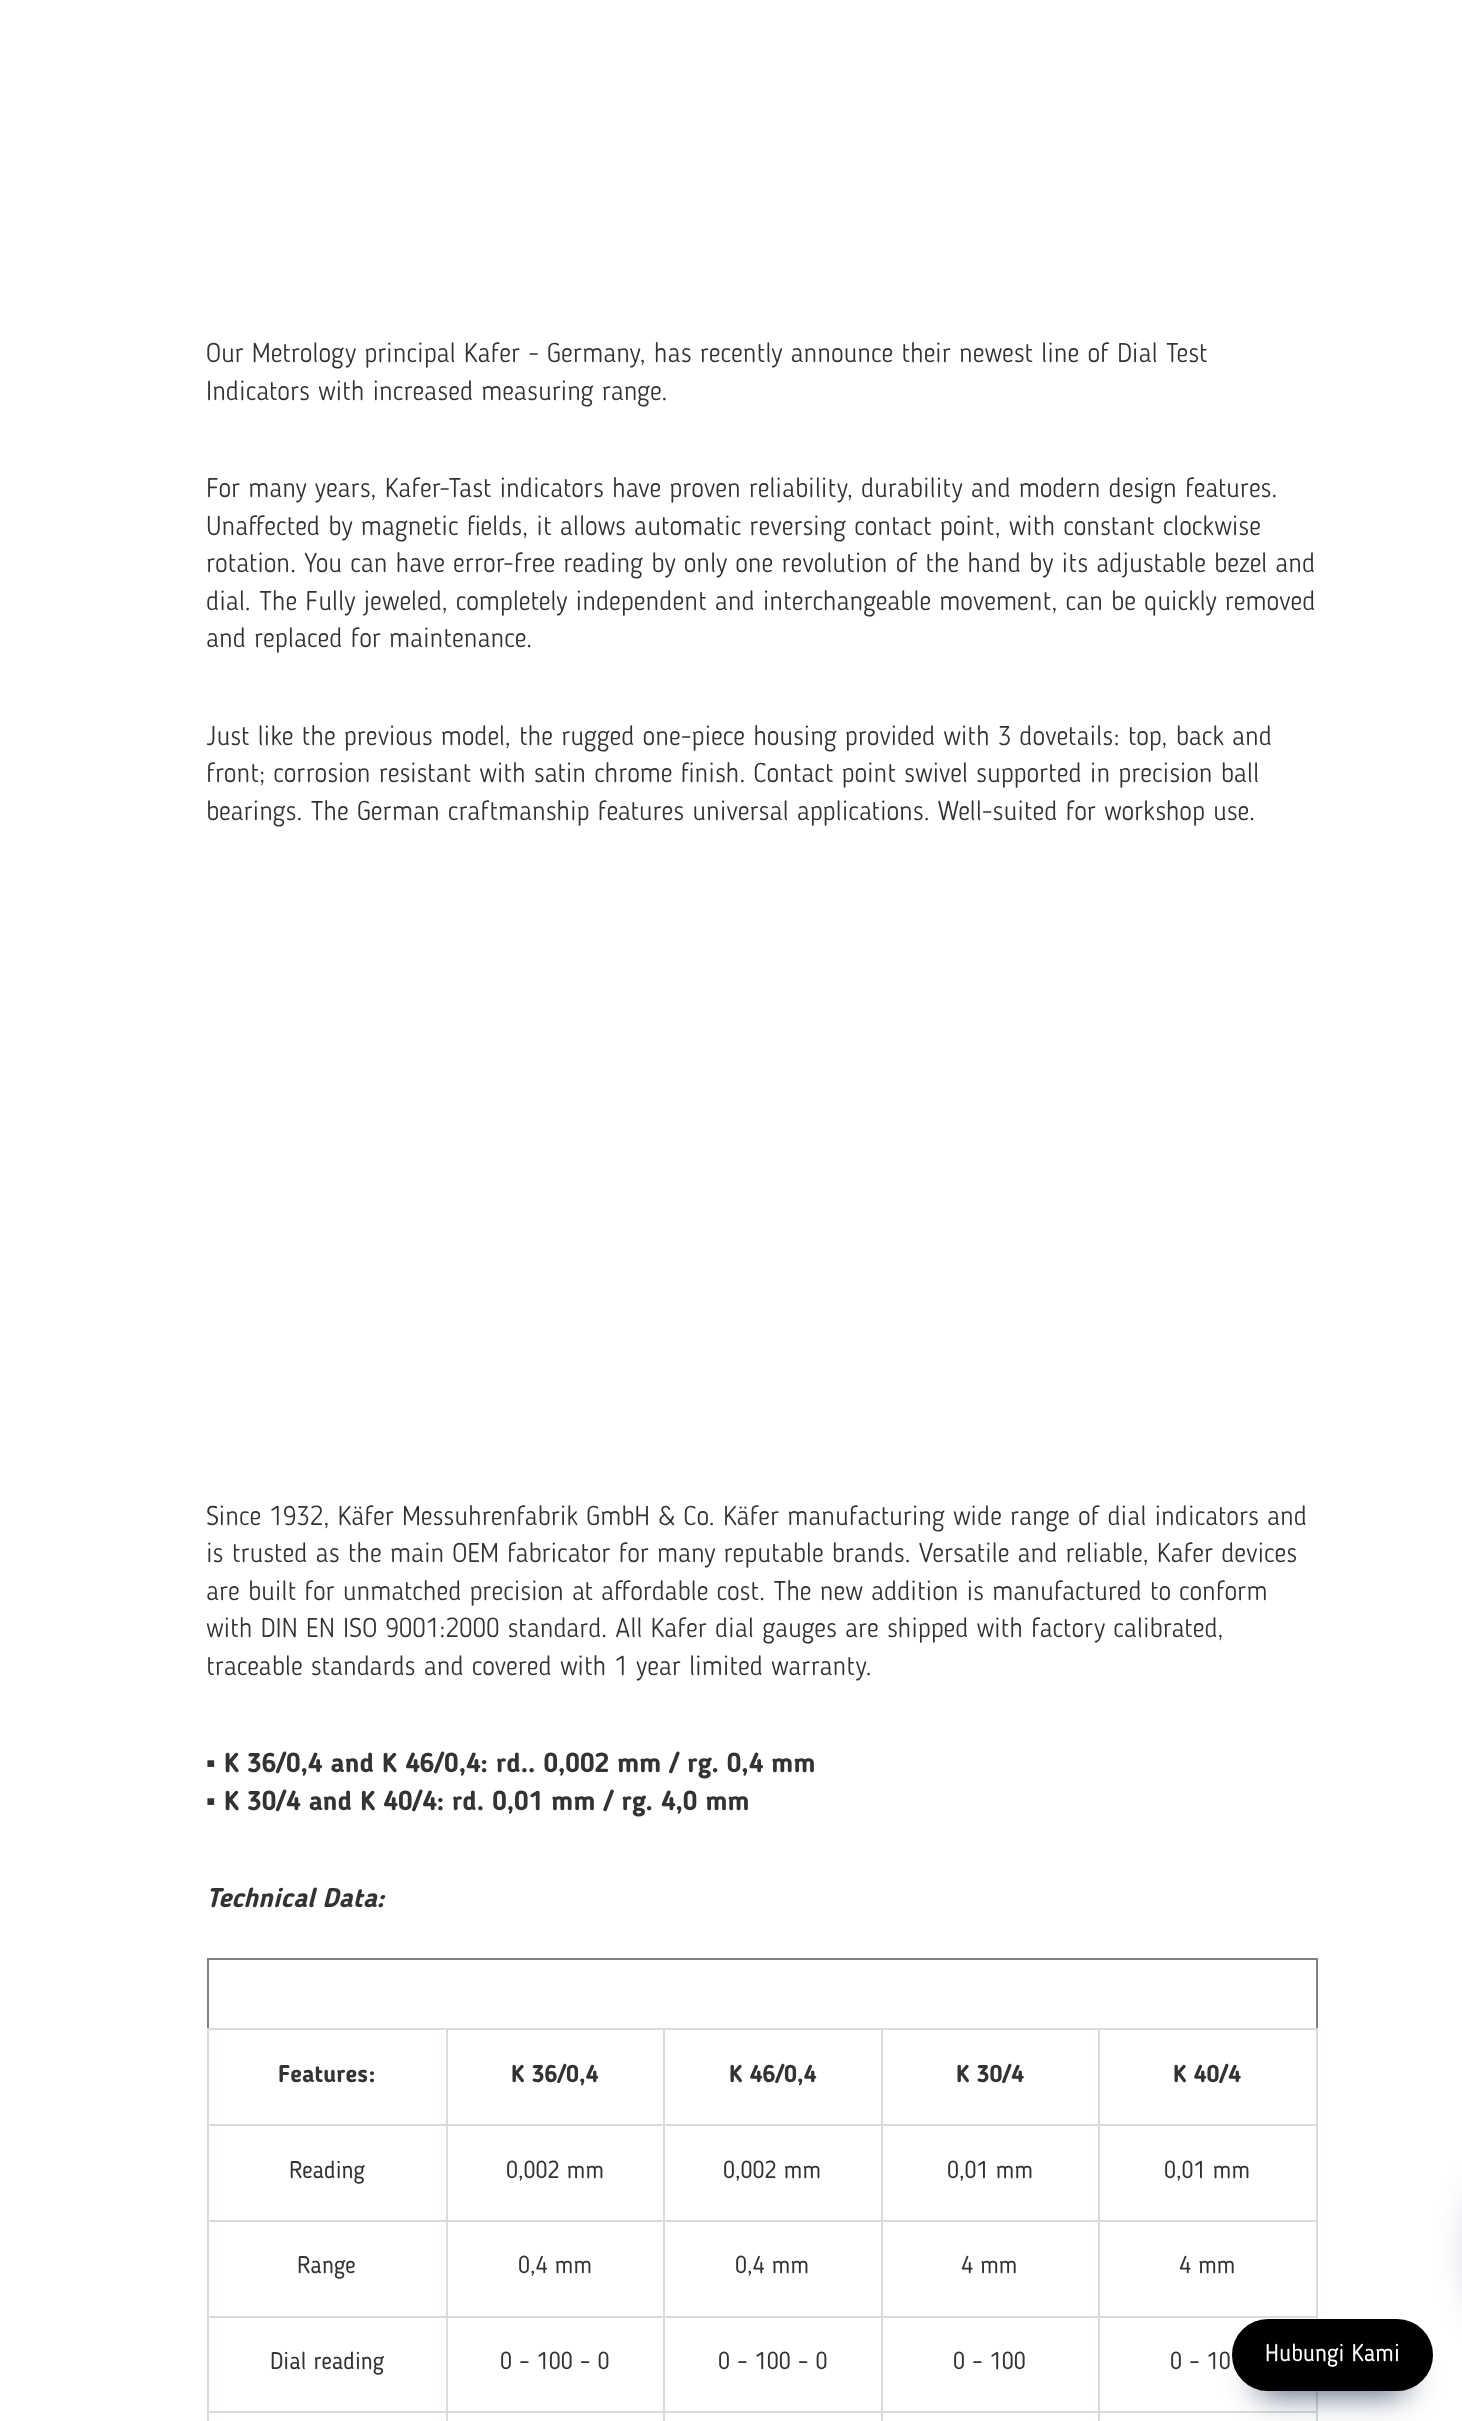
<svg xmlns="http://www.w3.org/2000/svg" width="1462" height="2421">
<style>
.a{font:300 27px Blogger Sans;fill:#333}
.b{font:bold 27px Liberation Serif;fill:#333}
.c{font:bold 27px Blogger Sans;fill:#333}
.d{font:italic bold 27px Blogger Sans;fill:#333}
.e{font:bold 24px Blogger Sans;fill:#333}
.f{font:24px Blogger Sans;fill:#333}
.g{font:24px Blogger Sans;fill:#fff}
</style>
<rect width="100%" height="100%" fill="#fff"/>
<path fill="#808080" d="M207 1958h1110v2H207z"/>
<path fill="#808080" d="M1316 1958h2v70H1316z"/>
<path fill="#808080" d="M207 1958h2v70H207z"/>
<path fill="#d9ddd9" d="M1098 2028h219v2H1098z"/>
<path fill="#d9ddd9" d="M1098 2124h219v2H1098z"/>
<path fill="#d9ddd9" d="M1098 2220h219v2H1098z"/>
<path fill="#d9ddd9" d="M1098 2316h219v2H1098z"/>
<path fill="#d9ddd9" d="M1098 2411h219v2H1098z"/>
<path fill="#d9ddd9" d="M1098 2411h2v10H1098z"/>
<path fill="#d9ddd9" d="M881 2411h219v2H881z"/>
<path fill="#d9ddd9" d="M1098 2316h2v96H1098z"/>
<path fill="#d9ddd9" d="M881 2316h219v2H881z"/>
<path fill="#d9ddd9" d="M1098 2220h2v98H1098z"/>
<path fill="#d9ddd9" d="M881 2220h219v2H881z"/>
<path fill="#d9ddd9" d="M1098 2124h2v98H1098z"/>
<path fill="#d9ddd9" d="M881 2124h219v2H881z"/>
<path fill="#d9ddd9" d="M1098 2028h2v98H1098z"/>
<path fill="#d9ddd9" d="M881 2028h219v2H881z"/>
<path fill="#d9ddd9" d="M881 2411h2v10H881z"/>
<path fill="#d9ddd9" d="M663 2411h219v2H663z"/>
<path fill="#d9ddd9" d="M881 2316h2v96H881z"/>
<path fill="#d9ddd9" d="M663 2316h219v2H663z"/>
<path fill="#d9ddd9" d="M881 2220h2v98H881z"/>
<path fill="#d9ddd9" d="M663 2220h219v2H663z"/>
<path fill="#d9ddd9" d="M881 2124h2v98H881z"/>
<path fill="#d9ddd9" d="M663 2124h219v2H663z"/>
<path fill="#d9ddd9" d="M881 2028h2v98H881z"/>
<path fill="#d9ddd9" d="M663 2028h219v2H663z"/>
<path fill="#d9ddd9" d="M663 2411h2v10H663z"/>
<path fill="#d9ddd9" d="M446 2411h219v2H446z"/>
<path fill="#d9ddd9" d="M663 2316h2v96H663z"/>
<path fill="#d9ddd9" d="M446 2316h219v2H446z"/>
<path fill="#d9ddd9" d="M663 2220h2v98H663z"/>
<path fill="#d9ddd9" d="M446 2220h219v2H446z"/>
<path fill="#d9ddd9" d="M663 2124h2v98H663z"/>
<path fill="#d9ddd9" d="M446 2124h219v2H446z"/>
<path fill="#d9ddd9" d="M663 2028h2v98H663z"/>
<path fill="#d9ddd9" d="M446 2028h219v2H446z"/>
<path fill="#d9ddd9" d="M446 2411h2v10H446z"/>
<path fill="#d9ddd9" d="M207 2411h240v2H207z"/>
<path fill="#d9ddd9" d="M446 2316h2v96H446z"/>
<path fill="#d9ddd9" d="M207 2316h240v2H207z"/>
<path fill="#d9ddd9" d="M446 2220h2v98H446z"/>
<path fill="#d9ddd9" d="M207 2220h240v2H207z"/>
<path fill="#d9ddd9" d="M446 2124h2v98H446z"/>
<path fill="#d9ddd9" d="M207 2124h240v2H207z"/>
<path fill="#d9ddd9" d="M446 2028h2v98H446z"/>
<path fill="#d9ddd9" d="M207 2028h240v2H207z"/>
<path fill="#d9ddd9" d="M207 2411h2v10H207z"/>
<path fill="#d9ddd9" d="M207 2316h2v96H207z"/>
<path fill="#d9ddd9" d="M207 2220h2v98H207z"/>
<path fill="#d9ddd9" d="M207 2124h2v98H207z"/>
<path fill="#d9ddd9" d="M207 2028h2v98H207z"/>
<path fill="#d9ddd9" d="M1316 2411h2v10H1316z"/>
<path fill="#d9ddd9" d="M1316 2316h2v96H1316z"/>
<path fill="#d9ddd9" d="M1316 2220h2v98H1316z"/>
<path fill="#d9ddd9" d="M1316 2124h2v98H1316z"/>
<path fill="#d9ddd9" d="M1316 2028h2v98H1316z"/>
<rect fill="#03153b" filter="blur(16.5px)" x="1257" y="2369" width="150" height="21" rx="10.5"/>
<path fill="#001f6199" filter="blur(23px)" d="M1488 2201h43v99H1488z"/>
<rect fill="#000" stroke="#000" stroke-width="3" x="1233.5" y="2320.5" width="198" height="69" rx="34.5"/>
<text class="a" x="206" y="362">Our Metrology principal Kafer - Germany, has recently announce their newest line of Dial Test</text>
<text class="a" x="206" y="400">Indicators with increased measuring range.</text>
<text class="a" x="206" y="497">For many years, Kafer-Tast indicators have proven reliability, durability and modern design features.</text>
<text class="a" x="206" y="535">Unaffected by magnetic fields, it allows automatic reversing contact point, with constant clockwise</text>
<text class="a" x="206" y="572">rotation. You can have error-free reading by only one revolution of the hand by its adjustable bezel and</text>
<text class="a" x="206" y="610">dial. The Fully jeweled, completely independent and interchangeable movement, can be quickly removed</text>
<text class="a" x="206" y="647">and replaced for maintenance.</text>
<text class="a" x="206" y="745">Just like the previous model, the rugged one-piece housing provided with 3 dovetails: top, back and</text>
<text class="a" x="206" y="782">front; corrosion resistant with satin chrome finish. Contact point swivel supported in precision ball</text>
<text class="a" x="206" y="820">bearings. The German craftmanship features universal applications. Well-suited for workshop use.</text>
<text class="a" x="206" y="1525">Since 1932, Käfer Messuhrenfabrik GmbH &amp; Co. Käfer manufacturing wide range of dial indicators and</text>
<text class="a" x="206" y="1562">is trusted as the main OEM fabricator for many reputable brands. Versatile and reliable, Kafer devices</text>
<text class="a" x="206" y="1600">are built for unmatched precision at affordable cost. The new addition is manufactured to conform</text>
<text class="a" x="206" y="1637">with DIN EN ISO 9001:2000 standard. All Kafer dial gauges are shipped with factory calibrated,</text>
<text class="a" x="206" y="1675">traceable standards and covered with 1 year limited warranty.</text>
<text class="b" x="206" y="1772">▪</text>
<text class="c" x="224" y="1772">K 36/0,4 and K 46/0,4: rd.. 0,002 mm / rg. 0,4 mm</text>
<text class="b" x="206" y="1810">▪</text>
<text class="c" x="224" y="1810">K 30/4 and K 40/4:</text>
<text class="c" x="452" y="1810">rd. 0,01 mm / rg. 4,0 mm</text>
<text class="d" x="206" y="1907">Technical Data:</text>
<text class="e" x="278" y="2082">Features:</text>
<text class="e" x="511" y="2082">K 36/0,4</text>
<text class="e" x="729" y="2082">K 46/0,4</text>
<text class="e" x="956" y="2082">K 30/4</text>
<text class="e" x="1173" y="2082">K 40/4</text>
<text class="f" x="289" y="2178">Reading</text>
<text class="f" x="506" y="2178">0,002 mm</text>
<text class="f" x="723" y="2178">0,002 mm</text>
<text class="f" x="947" y="2178">0,01 mm</text>
<text class="f" x="1164" y="2178">0,01 mm</text>
<text class="f" x="297" y="2273">Range</text>
<text class="f" x="518" y="2273">0,4 mm</text>
<text class="f" x="735" y="2273">0,4 mm</text>
<text class="f" x="961" y="2273">4 mm</text>
<text class="f" x="1179" y="2273">4 mm</text>
<text class="f" x="270" y="2369">Dial reading</text>
<text class="f" x="500" y="2369">0 – 100 – 0</text>
<text class="f" x="718" y="2369">0 – 100 – 0</text>
<text class="f" x="953" y="2369">0 – 100</text>
<text class="f" x="1170" y="2369">0 – 10</text>
<text class="g" x="1265" y="2361">Hubungi Kami</text>
</svg>
